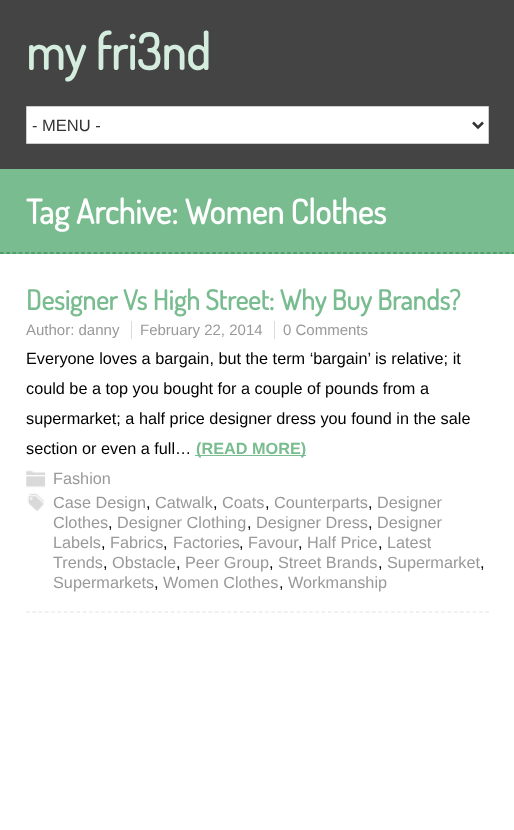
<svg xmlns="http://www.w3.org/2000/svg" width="514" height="830">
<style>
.a{font:bold 50px Dosis;fill:#d5edde}
.b{font:16.5px Liberation Sans;fill:#333}
.c{font:bold 33.75px Dosis;fill:#fff}
.d{font:bold 27.5px Dosis;fill:#79bc90}
.e{font:15px Liberation Sans;fill:#999}
.f{font:16.25px Liberation Sans;fill:#000}
.g{font:bold 16.25px Liberation Sans;fill:#79bc90}
.h{font:16.25px Liberation Sans;fill:#999}
</style>
<rect width="100%" height="100%" fill="#fff"/>
<path fill="#444" d="M0 0h514v169H0z"/>
<path fill="#fff" stroke="#ccc" d="M26.5 106.5h462v37H26.5z"/>
<path fill="none" stroke="#333" stroke-width="2.5" d="M473 122.5l5 5l5-5"/>
<path fill="#79bc90" d="M0 169h514v85H0z"/>
<path fill="none" stroke="#2a8047" stroke-width="1.2" stroke-dasharray="3.75 2.49" d="M0 253h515"/>
<path fill="none" stroke="#e3e3e3" stroke-width="1.2" stroke-dasharray="3.75 2.54" d="M26 612h463"/>
<path fill="#dbdbdb" d="M131 321h1v18H131z"/>
<path fill="#dbdbdb" d="M274 321h1v18H274z"/>
<path fill="#79bc90" d="M195 455h111v1H195z"/>
<image href="1.png" x="26" y="470" width="20" height="18"/>
<image href="2.png" x="27" y="493" width="17" height="19"/>
<text class="a" x="26" y="70">my fri3nd</text>
<text class="b" x="32" y="131">- MENU -</text>
<text class="c" x="26" y="224">Tag Archive: Women Clothes</text>
<text class="d" x="26" y="310">Designer Vs High Street: Why Buy Brands?</text>
<text class="e" x="26" y="335">Author: danny</text>
<text class="e" x="140" y="335">February 22, 2014</text>
<text class="e" x="283" y="335">0 Comments</text>
<text class="f" x="26" y="364">Everyone loves a bargain, but the term ‘bargain’ is relative; it</text>
<text class="f" x="26" y="394">could be a top you bought for a couple of pounds from a</text>
<text class="f" x="26" y="424">supermarket; a half price designer dress you found in the sale</text>
<text class="f" x="26" y="454">section or even a full…</text>
<text class="g" x="196" y="454">(READ MORE)</text>
<text class="h" x="53" y="484">Fashion</text>
<text class="h" x="53" y="508">Case Design</text>
<text class="f" x="146" y="508">,</text>
<text class="h" x="155" y="508">Catwalk</text>
<text class="f" x="213" y="508">,</text>
<text class="h" x="222" y="508">Coats</text>
<text class="f" x="265" y="508">,</text>
<text class="h" x="274" y="508">Counterparts</text>
<text class="f" x="368" y="508">,</text>
<text class="h" x="377" y="508">Designer</text>
<text class="h" x="53" y="528">Clothes</text>
<text class="f" x="108" y="528">,</text>
<text class="h" x="117" y="528">Designer Clothing</text>
<text class="f" x="247" y="528">,</text>
<text class="h" x="256" y="528">Designer Dress</text>
<text class="f" x="368" y="528">,</text>
<text class="h" x="377" y="528">Designer</text>
<text class="h" x="53" y="548">Labels</text>
<text class="f" x="101" y="548">,</text>
<text class="h" x="110" y="548">Fabrics</text>
<text class="f" x="163" y="548">,</text>
<text class="h" x="173" y="548">Factories</text>
<text class="f" x="239" y="548">,</text>
<text class="h" x="248" y="548">Favour</text>
<text class="f" x="298" y="548">,</text>
<text class="h" x="307" y="548">Half Price</text>
<text class="f" x="378" y="548">,</text>
<text class="h" x="387" y="548">Latest</text>
<text class="h" x="53" y="568">Trends</text>
<text class="f" x="103" y="568">,</text>
<text class="h" x="112" y="568">Obstacle</text>
<text class="f" x="176" y="568">,</text>
<text class="h" x="185" y="568">Peer Group</text>
<text class="f" x="269" y="568">,</text>
<text class="h" x="278" y="568">Street Brands</text>
<text class="f" x="378" y="568">,</text>
<text class="h" x="387" y="568">Supermarket</text>
<text class="f" x="480" y="568">,</text>
<text class="h" x="53" y="588">Supermarkets</text>
<text class="f" x="154" y="588">,</text>
<text class="h" x="163" y="588">Women Clothes</text>
<text class="f" x="279" y="588">,</text>
<text class="h" x="288" y="588">Workmanship</text>
</svg>
